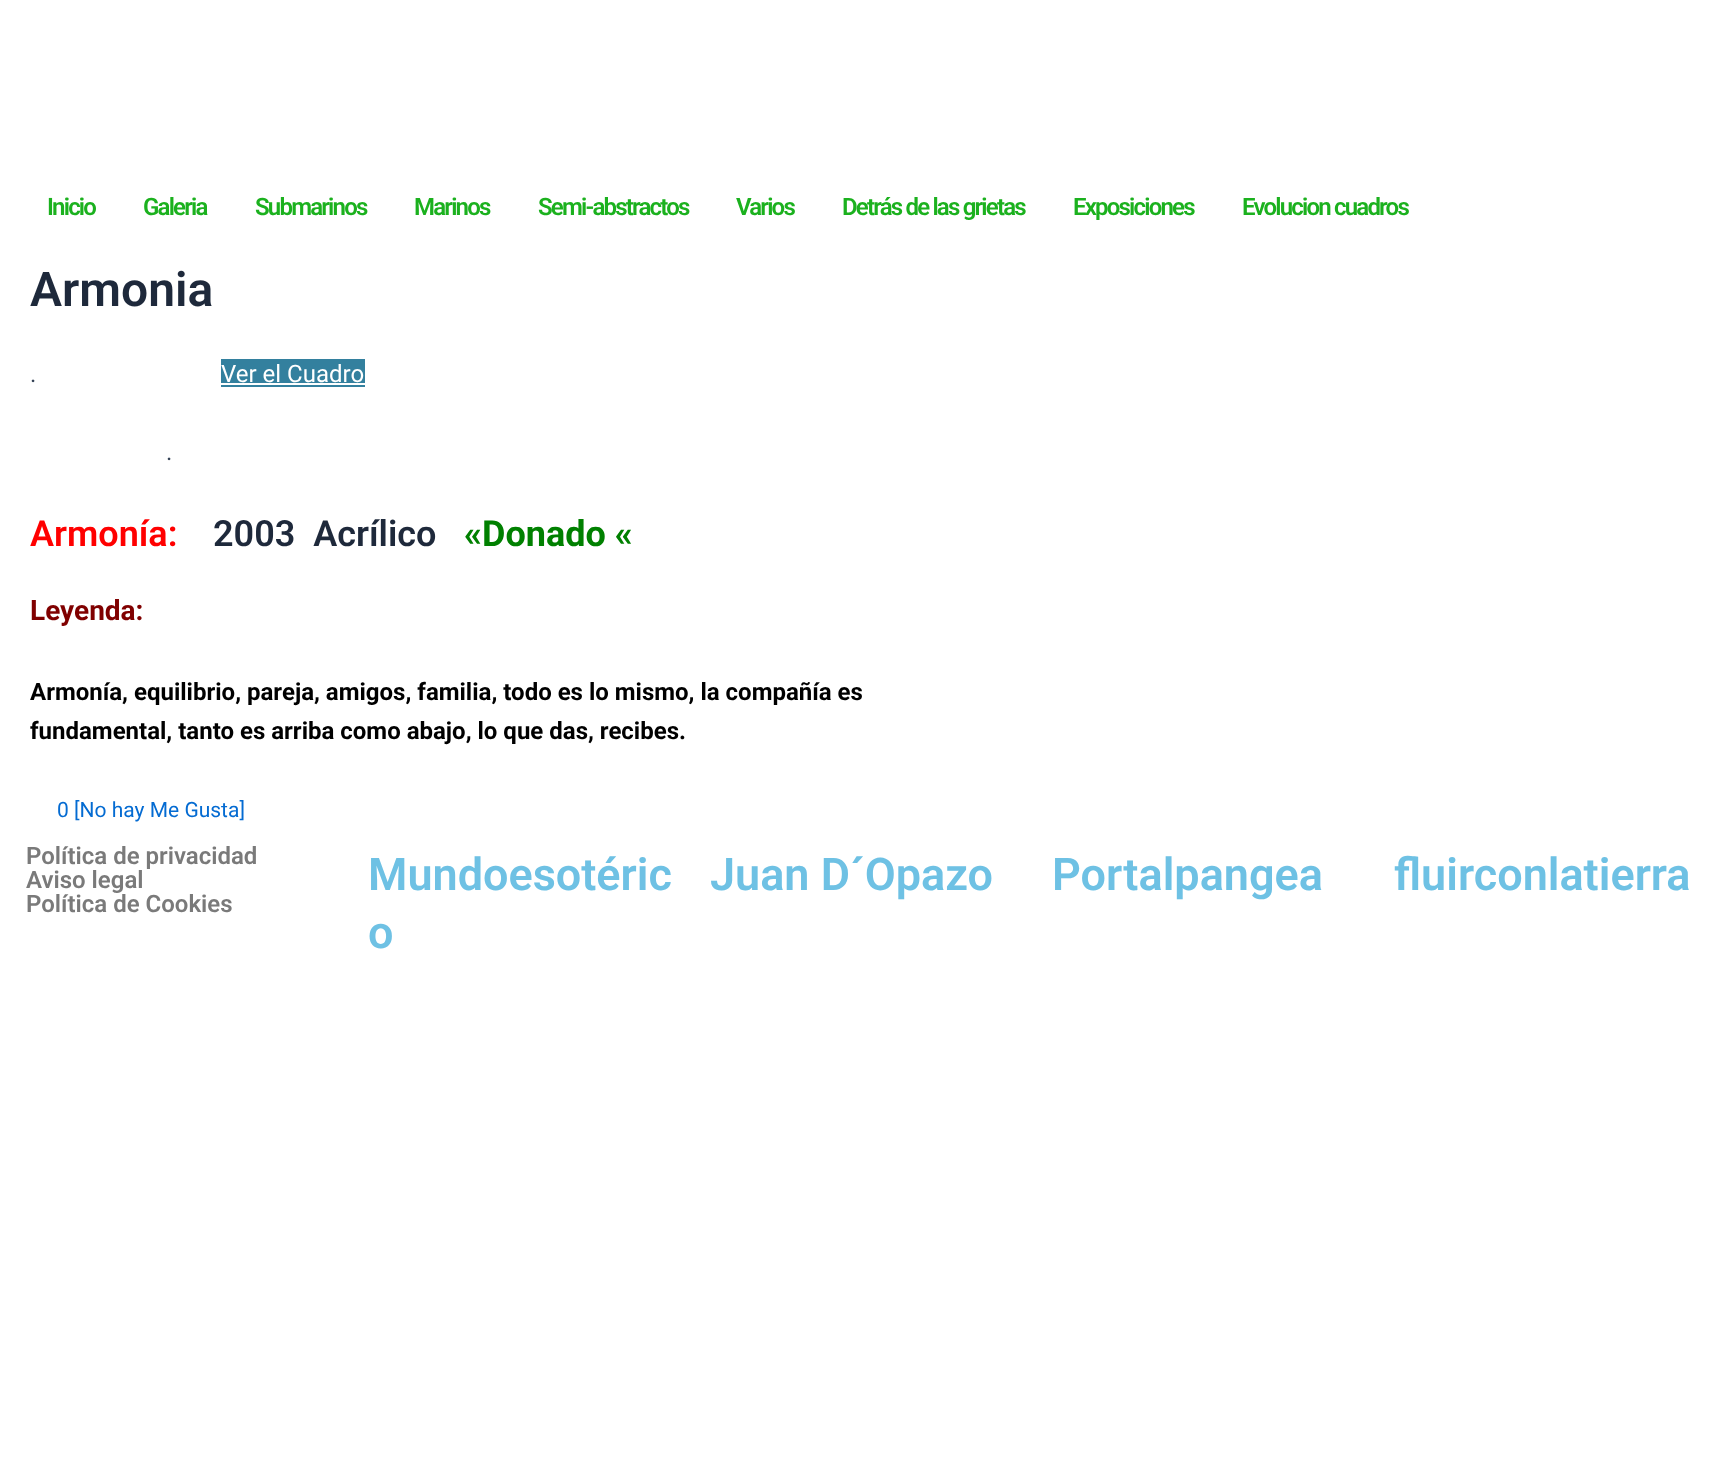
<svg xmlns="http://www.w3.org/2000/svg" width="1732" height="1482">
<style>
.a{font:600 24px Roboto;letter-spacing:-1.8px;fill:#1bb11e}
.b{font:600 48px Roboto;fill:#1e293b}
.c{font:24px Roboto;fill:#334155}
.d{font:24px Roboto;fill:#fff}
.e{font:600 36px Roboto;fill:#f00}
.f{font:600 36px Roboto;fill:#1e293b}
.g{font:bold 36px Roboto;fill:#008000}
.h{font:bold 28px Roboto;fill:#800000}
.i{font:bold 24px Roboto;fill:#000}
.j{font:21px Roboto;fill:#046bd2}
.k{font:600 24px Roboto;fill:#7a7a7a}
.l{font:600 45px Roboto;fill:#6ec1e4}
</style>
<rect width="100%" height="100%" fill="#fff"/>
<path fill="#33809e" d="M221 359h144v28H221z"/>
<path fill="#fff" d="M221 383h144v2H221z"/>
<text class="a" x="47" y="215">Inicio</text>
<text class="a" x="143" y="215">Galeria</text>
<text class="a" x="255" y="215">Submarinos</text>
<text class="a" x="414" y="215">Marinos</text>
<text class="a" x="538" y="215">Semi-abstractos</text>
<text class="a" x="736" y="215">Varios</text>
<text class="a" x="842" y="215">Detrás de las grietas</text>
<text class="a" x="1073" y="215">Exposiciones</text>
<text class="a" x="1242" y="215">Evolucion cuadros</text>
<text class="b" x="30" y="306">Armonia</text>
<text class="c" x="30" y="382">.</text>
<text class="d" x="221" y="382">Ver el Cuadro</text>
<text class="c" x="166" y="460">.</text>
<text class="e" x="30" y="546">Armonía:</text>
<text class="f" xml:space="preserve" x="213" y="546">2003  Acrílico</text>
<text class="g" x="464" y="546">«Donado «</text>
<text class="h" x="30" y="620">Leyenda:</text>
<text class="i" x="30" y="700">Armonía, equilibrio, pareja, amigos, familia, todo es lo mismo, la compañía es</text>
<text class="i" x="30" y="739">fundamental, tanto es arriba como abajo, lo que das, recibes.</text>
<text class="j" x="57" y="817">0 [No hay Me Gusta]</text>
<text class="k" x="26" y="864">Política de privacidad</text>
<text class="k" x="26" y="888">Aviso legal</text>
<text class="k" x="26" y="912">Política de Cookies</text>
<text class="l" x="368" y="890">Mundoesotéric</text>
<text class="l" x="368" y="948">o</text>
<text class="l" x="710" y="890">Juan D´Opazo</text>
<text class="l" x="1052" y="890">Portalpangea</text>
<text class="l" x="1394" y="890">fluirconlatierra</text>
</svg>
